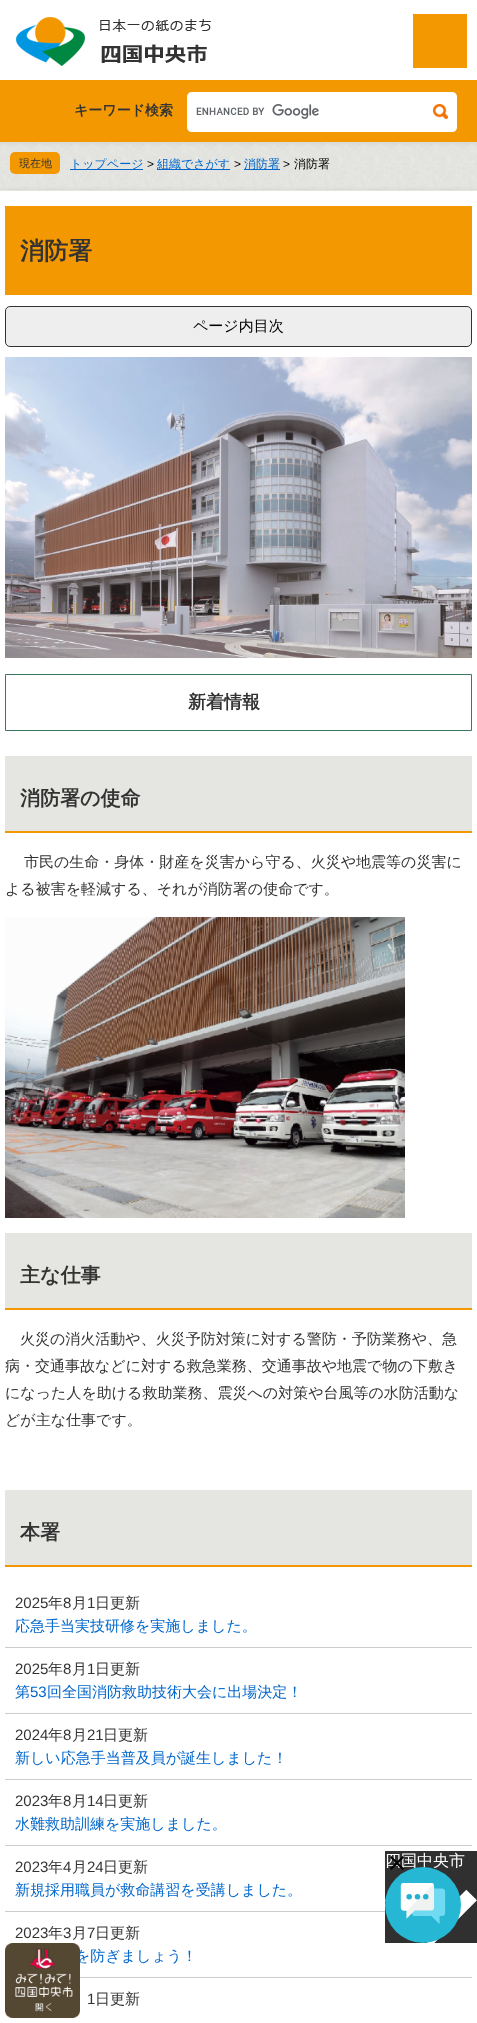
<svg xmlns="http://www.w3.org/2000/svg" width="477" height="2023">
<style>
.a{font:bold 14px WenQuanYi Zen Hei;fill:#333}
.b{font:500 11px WenQuanYi Zen Hei;fill:#333}
.c{font:500 12px WenQuanYi Zen Hei;fill:#06c}
.d{font:12px Liberation Sans;fill:#000}
.e{font:500 12px WenQuanYi Zen Hei;fill:#000}
.f{font:bold 24px WenQuanYi Zen Hei;fill:#333}
.g{font:500 15px WenQuanYi Zen Hei;fill:#000}
.h{font:bold 18px WenQuanYi Zen Hei;fill:#333}
.i{font:bold 20px WenQuanYi Zen Hei;fill:#333}
.j{font:500 15px WenQuanYi Zen Hei;fill:#333}
.k{font:15px Liberation Sans;fill:#333}
.l{font:500 15px WenQuanYi Zen Hei;fill:#06c}
.m{font:15px Liberation Sans;fill:#06c}
</style>
<rect width="100%" height="100%" fill="#fff"/>
<path fill="#f39800" d="M413 14h54v54H413z"/>
<image href="1.png" x="16" y="17" width="195" height="49"/>
<path fill="#f39800" d="M0 80h477v62H0z"/>
<path fill="#fff" d="M192 92h225v40h-225c-3 0-5-2-5-5v-30c0-3 2-5 5-5z"/>
<image href="2.png" x="196" y="104" width="123" height="15"/>
<path fill="#fff" d="M417 92h35c3 0 5 2 5 5v30c0 3-2 5-5 5h-35z"/>
<image href="3.png" x="433" y="104" width="15" height="15"/>
<image href="4.png" x="0" y="142" width="477" height="49"/>
<rect fill="#f39800" x="10" y="152" width="50" height="22" rx="5"/>
<path fill="#06c" d="M70 169h73v1H70z"/>
<path fill="#06c" d="M157 169h73v1H157z"/>
<path fill="#06c" d="M244 169h36v1H244z"/>
<path fill="#f39800" d="M5 206h467v89H5z"/>
<rect fill="#eee" stroke="#333" x="5.5" y="306.5" width="466" height="40" rx="4.5"/>
<image href="5.png" x="5" y="357" width="467" height="301"/>
<path fill="none" stroke="#3f775a" d="M5.5 674.5h466v56H5.5z"/>
<path fill="#e5e6e1" d="M5 756h467v75H5z"/>
<path fill="#f39800" d="M5 831h467v2H5z"/>
<image href="6.png" x="5" y="917" width="400" height="301"/>
<path fill="#e5e6e1" d="M5 1233h467v75H5z"/>
<path fill="#f39800" d="M5 1308h467v2H5z"/>
<path fill="#e5e6e1" d="M5 1490h467v75H5z"/>
<path fill="#f39800" d="M5 1565h467v2H5z"/>
<path fill="#ccc" d="M5 1647h467v1H5z"/>
<path fill="#ccc" d="M5 1713h467v1H5z"/>
<path fill="#ccc" d="M5 1779h467v1H5z"/>
<path fill="#ccc" d="M5 1845h467v1H5z"/>
<path fill="#ccc" d="M5 1911h380v1H5z"/>
<path fill="#ccc" d="M80 1977h392v1H80z"/>
<image href="8.png" x="385" y="1851" width="92" height="92"/>
<text class="a" x="74" y="115">キーワード検索</text>
<text class="b" x="19" y="167">現在地</text>
<text class="c" x="70" y="168">トップページ</text>
<text class="d" x="147" y="168">&gt;</text>
<text class="c" x="157" y="168">組織でさがす</text>
<text class="d" x="234" y="168">&gt;</text>
<text class="c" x="244" y="168">消防署</text>
<text class="d" x="283" y="168">&gt;</text>
<text class="e" x="294" y="168">消防署</text>
<text class="f" x="20" y="259">消防署</text>
<text class="g" x="193" y="331">ページ内目次</text>
<text class="h" x="188" y="708">新着情報</text>
<text class="i" x="20" y="805">消防署の使命</text>
<text class="j" x="24" y="867">市民の生命・身体・財産を災害から守る、火災や地震等の災害に</text>
<text class="j" x="5" y="894">よる被害を軽減する、それが消防署の使命です。</text>
<text class="i" x="20" y="1282">主な仕事</text>
<text class="j" x="20" y="1344">火災の消火活動や、火災予防対策に対する警防・予防業務や、急</text>
<text class="j" x="5" y="1371">病・交通事故などに対する救急業務、交通事故や地震で物の下敷き</text>
<text class="j" x="5" y="1398">になった人を助ける救助業務、震災への対策や台風等の水防活動な</text>
<text class="j" x="5" y="1425">どが主な仕事です。</text>
<text class="i" x="20" y="1539">本署</text>
<text class="k" x="15" y="1608">2025</text>
<text class="j" x="48" y="1608">年</text>
<text class="k" x="63" y="1608">8</text>
<text class="j" x="72" y="1608">月</text>
<text class="k" x="87" y="1608">1</text>
<text class="j" x="95" y="1608">日更新</text>
<text class="l" x="15" y="1631">応急手当実技研修を実施しました。</text>
<text class="k" x="15" y="1674">2025</text>
<text class="j" x="48" y="1674">年</text>
<text class="k" x="63" y="1674">8</text>
<text class="j" x="72" y="1674">月</text>
<text class="k" x="87" y="1674">1</text>
<text class="j" x="95" y="1674">日更新</text>
<text class="l" x="15" y="1697">第</text>
<text class="m" x="30" y="1697">53</text>
<text class="l" x="47" y="1697">回全国消防救助技術大会に出場決定！</text>
<text class="k" x="15" y="1740">2024</text>
<text class="j" x="48" y="1740">年</text>
<text class="k" x="63" y="1740">8</text>
<text class="j" x="72" y="1740">月</text>
<text class="k" x="87" y="1740">21</text>
<text class="j" x="103" y="1740">日更新</text>
<text class="l" x="15" y="1763">新しい応急手当普及員が誕生しました！</text>
<text class="k" x="15" y="1806">2023</text>
<text class="j" x="48" y="1806">年</text>
<text class="k" x="63" y="1806">8</text>
<text class="j" x="72" y="1806">月</text>
<text class="k" x="87" y="1806">14</text>
<text class="j" x="103" y="1806">日更新</text>
<text class="l" x="15" y="1829">水難救助訓練を実施しました。</text>
<text class="k" x="15" y="1872">2023</text>
<text class="j" x="48" y="1872">年</text>
<text class="k" x="63" y="1872">4</text>
<text class="j" x="72" y="1872">月</text>
<text class="k" x="87" y="1872">24</text>
<text class="j" x="103" y="1872">日更新</text>
<text class="l" x="15" y="1895">新規採用職員が救命講習を受講しました。</text>
<text class="k" x="15" y="1938">2023</text>
<text class="j" x="48" y="1938">年</text>
<text class="k" x="63" y="1938">3</text>
<text class="j" x="72" y="1938">月</text>
<text class="k" x="87" y="1938">7</text>
<text class="j" x="95" y="1938">日更新</text>
<text class="l" x="75" y="1961">を防ぎましょう！</text>
<text class="k" x="87" y="2004">1</text>
<text class="j" x="95" y="2004">日更新</text>
<image href="7.png" x="5" y="1943" width="75" height="75"/>
</svg>
